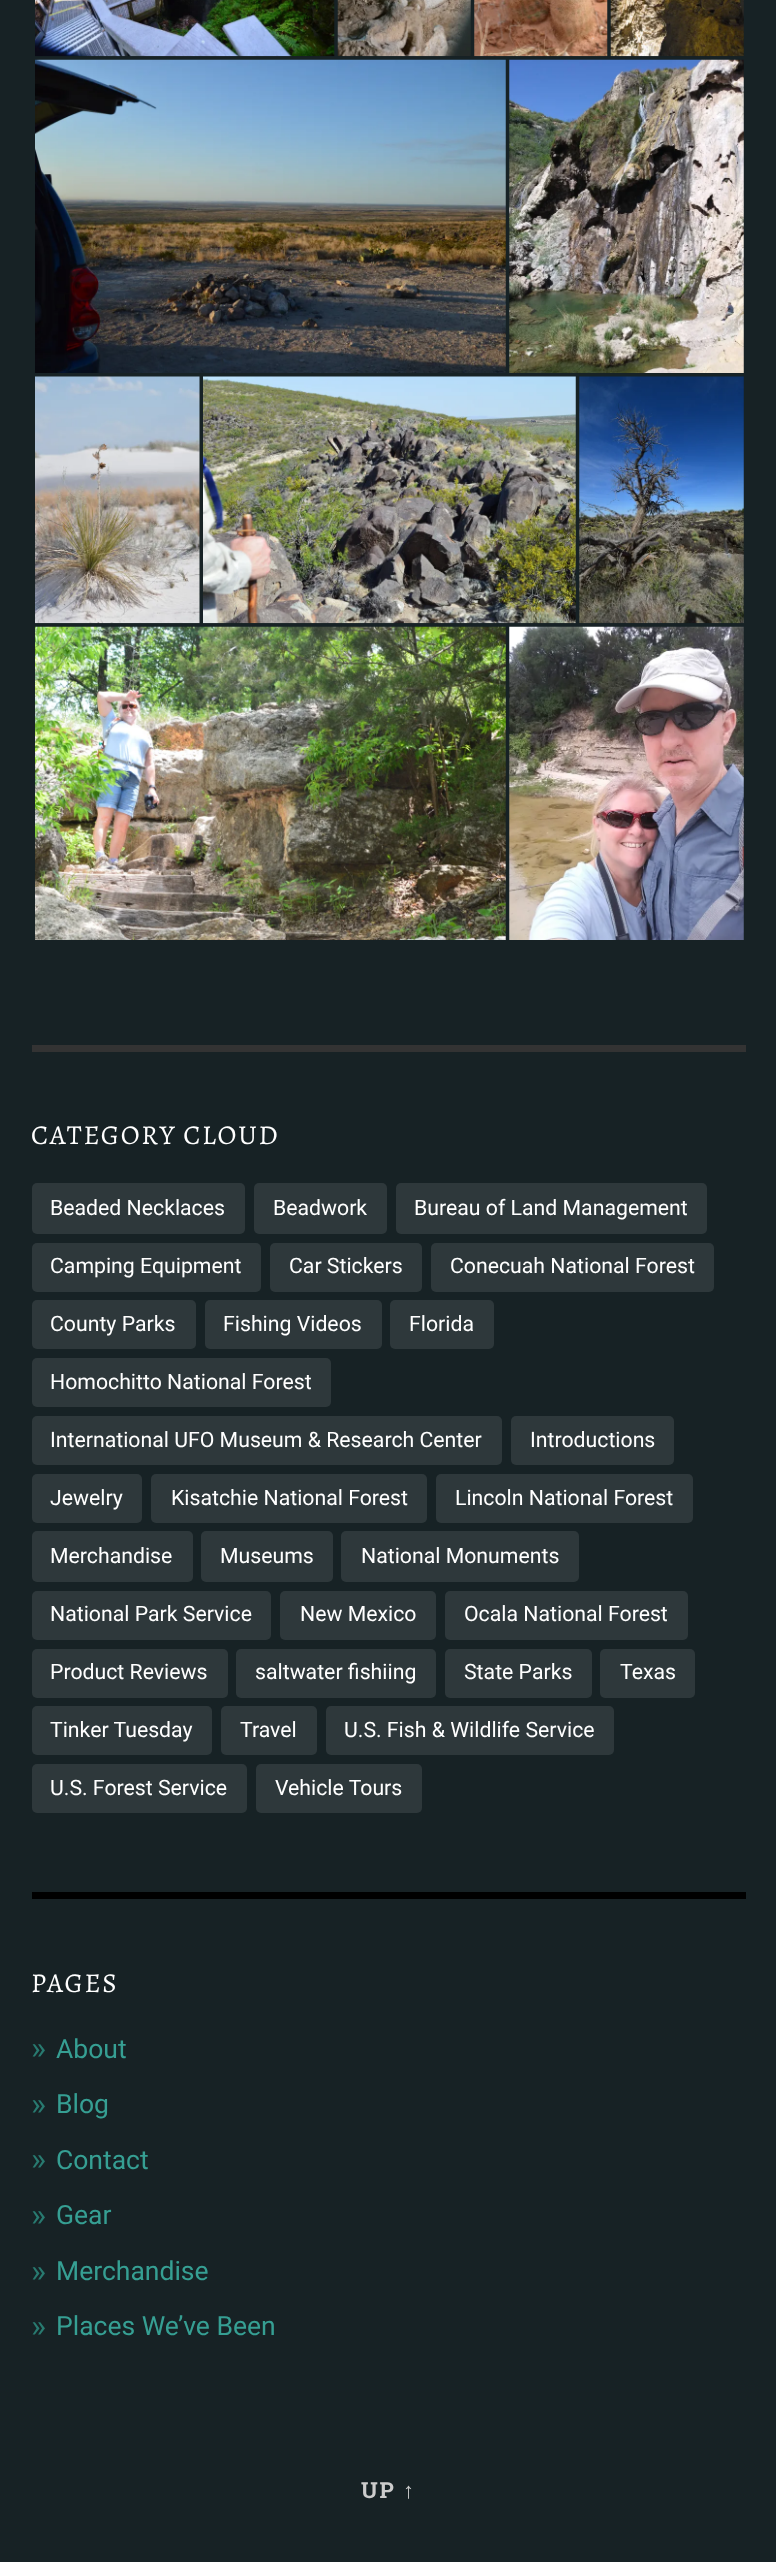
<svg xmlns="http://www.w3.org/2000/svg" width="776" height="2562">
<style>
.a{font:27.25px Alegreya;letter-spacing:1.75px;fill:#fff}
.b{font:21.25px Roboto;fill:#fff}
.c{font:32px Roboto;fill:#287a70}
.d{font:26.5px Roboto;fill:#369f93}
.e{font:bold 22px Roboto Slab;letter-spacing:1.75px;fill:#ccc}
.f{font:bold 22px Liberation Sans;letter-spacing:1.75px;fill:#ccc}
</style>
<rect width="100%" height="100%" fill="#172225"/>
<image href="1.png" x="35" y="0" width="300" height="57"/>
<image href="2.png" x="337" y="0" width="134" height="57"/>
<image href="3.png" x="474" y="0" width="134" height="57"/>
<image href="4.png" x="610" y="0" width="134" height="57"/>
<image href="5.png" x="35" y="59" width="471" height="314"/>
<image href="6.png" x="509" y="59" width="235" height="314"/>
<image href="7.png" x="35" y="376" width="165" height="248"/>
<image href="8.png" x="203" y="376" width="373" height="248"/>
<image href="9.png" x="579" y="376" width="165" height="248"/>
<image href="10.png" x="35" y="626" width="471" height="314"/>
<image href="11.png" x="509" y="626" width="235" height="314"/>
<path fill="#333" d="M32 1045h714v7H32z"/>
<rect fill="#2e383b" x="32" y="1183" width="213" height="51" rx="5"/>
<rect fill="#2e383b" x="254" y="1183" width="133" height="51" rx="5"/>
<rect fill="#2e383b" x="396" y="1183" width="311" height="51" rx="5"/>
<rect fill="#2e383b" x="32" y="1243" width="229" height="49" rx="5"/>
<rect fill="#2e383b" x="270" y="1243" width="152" height="49" rx="5"/>
<rect fill="#2e383b" x="431" y="1243" width="283" height="49" rx="5"/>
<rect fill="#2e383b" x="32" y="1300" width="164" height="49" rx="5"/>
<rect fill="#2e383b" x="205" y="1300" width="177" height="49" rx="5"/>
<rect fill="#2e383b" x="390" y="1300" width="104" height="49" rx="5"/>
<rect fill="#2e383b" x="32" y="1358" width="299" height="49" rx="5"/>
<rect fill="#2e383b" x="32" y="1416" width="470" height="49" rx="5"/>
<rect fill="#2e383b" x="511" y="1416" width="163" height="49" rx="5"/>
<rect fill="#2e383b" x="32" y="1474" width="110" height="49" rx="5"/>
<rect fill="#2e383b" x="151" y="1474" width="276" height="49" rx="5"/>
<rect fill="#2e383b" x="436" y="1474" width="257" height="49" rx="5"/>
<rect fill="#2e383b" x="32" y="1531" width="161" height="51" rx="5"/>
<rect fill="#2e383b" x="201" y="1531" width="132" height="51" rx="5"/>
<rect fill="#2e383b" x="341" y="1531" width="238" height="51" rx="5"/>
<rect fill="#2e383b" x="32" y="1591" width="239" height="49" rx="5"/>
<rect fill="#2e383b" x="280" y="1591" width="156" height="49" rx="5"/>
<rect fill="#2e383b" x="445" y="1591" width="243" height="49" rx="5"/>
<rect fill="#2e383b" x="32" y="1649" width="196" height="49" rx="5"/>
<rect fill="#2e383b" x="236" y="1649" width="200" height="49" rx="5"/>
<rect fill="#2e383b" x="445" y="1649" width="147" height="49" rx="5"/>
<rect fill="#2e383b" x="600" y="1649" width="95" height="49" rx="5"/>
<rect fill="#2e383b" x="32" y="1706" width="180" height="49" rx="5"/>
<rect fill="#2e383b" x="221" y="1706" width="96" height="49" rx="5"/>
<rect fill="#2e383b" x="326" y="1706" width="288" height="49" rx="5"/>
<rect fill="#2e383b" x="32" y="1764" width="215" height="49" rx="5"/>
<rect fill="#2e383b" x="256" y="1764" width="166" height="49" rx="5"/>
<path fill="#000" d="M32 1892h714v7H32z"/>
<text class="a" x="31" y="1144">CATEGORY CLOUD</text>
<text class="b" x="50" y="1215">Beaded Necklaces</text>
<text class="b" x="273" y="1215">Beadwork</text>
<text class="b" x="414" y="1215">Bureau of Land Management</text>
<text class="b" x="50" y="1273">Camping Equipment</text>
<text class="b" x="289" y="1273">Car Stickers</text>
<text class="b" x="450" y="1273">Conecuah National Forest</text>
<text class="b" x="50" y="1331">County Parks</text>
<text class="b" x="223" y="1331">Fishing Videos</text>
<text class="b" x="409" y="1331">Florida</text>
<text class="b" x="50" y="1389">Homochitto National Forest</text>
<text class="b" x="50" y="1447">International UFO Museum &amp; Research Center</text>
<text class="b" x="530" y="1447">Introductions</text>
<text class="b" x="50" y="1505">Jewelry</text>
<text class="b" x="171" y="1505">Kisatchie National Forest</text>
<text class="b" x="455" y="1505">Lincoln National Forest</text>
<text class="b" x="50" y="1563">Merchandise</text>
<text class="b" x="220" y="1563">Museums</text>
<text class="b" x="361" y="1563">National Monuments</text>
<text class="b" x="50" y="1621">National Park Service</text>
<text class="b" x="300" y="1621">New Mexico</text>
<text class="b" x="464" y="1621">Ocala National Forest</text>
<text class="b" x="50" y="1679">Product Reviews</text>
<text class="b" x="255" y="1679">saltwater fishiing</text>
<text class="b" x="464" y="1679">State Parks</text>
<text class="b" x="620" y="1679">Texas</text>
<text class="b" x="50" y="1737">Tinker Tuesday</text>
<text class="b" x="240" y="1737">Travel</text>
<text class="b" x="344" y="1737">U.S. Fish &amp; Wildlife Service</text>
<text class="b" x="50" y="1795">U.S. Forest Service</text>
<text class="b" x="275" y="1795">Vehicle Tours</text>
<text class="a" x="31" y="1992">PAGES</text>
<text class="c" x="31" y="2059">»</text>
<text class="d" x="56" y="2058">About</text>
<text class="c" x="31" y="2115">»</text>
<text class="d" x="56" y="2113">Blog</text>
<text class="c" x="31" y="2170">»</text>
<text class="d" x="56" y="2169">Contact</text>
<text class="c" x="31" y="2226">»</text>
<text class="d" x="56" y="2224">Gear</text>
<text class="c" x="31" y="2282">»</text>
<text class="d" x="56" y="2280">Merchandise</text>
<text class="c" x="31" y="2337">»</text>
<text class="d" x="56" y="2335">Places We’ve Been</text>
<text class="e" x="361" y="2498">UP</text>
<text class="f" x="403" y="2498">↑</text>
</svg>
